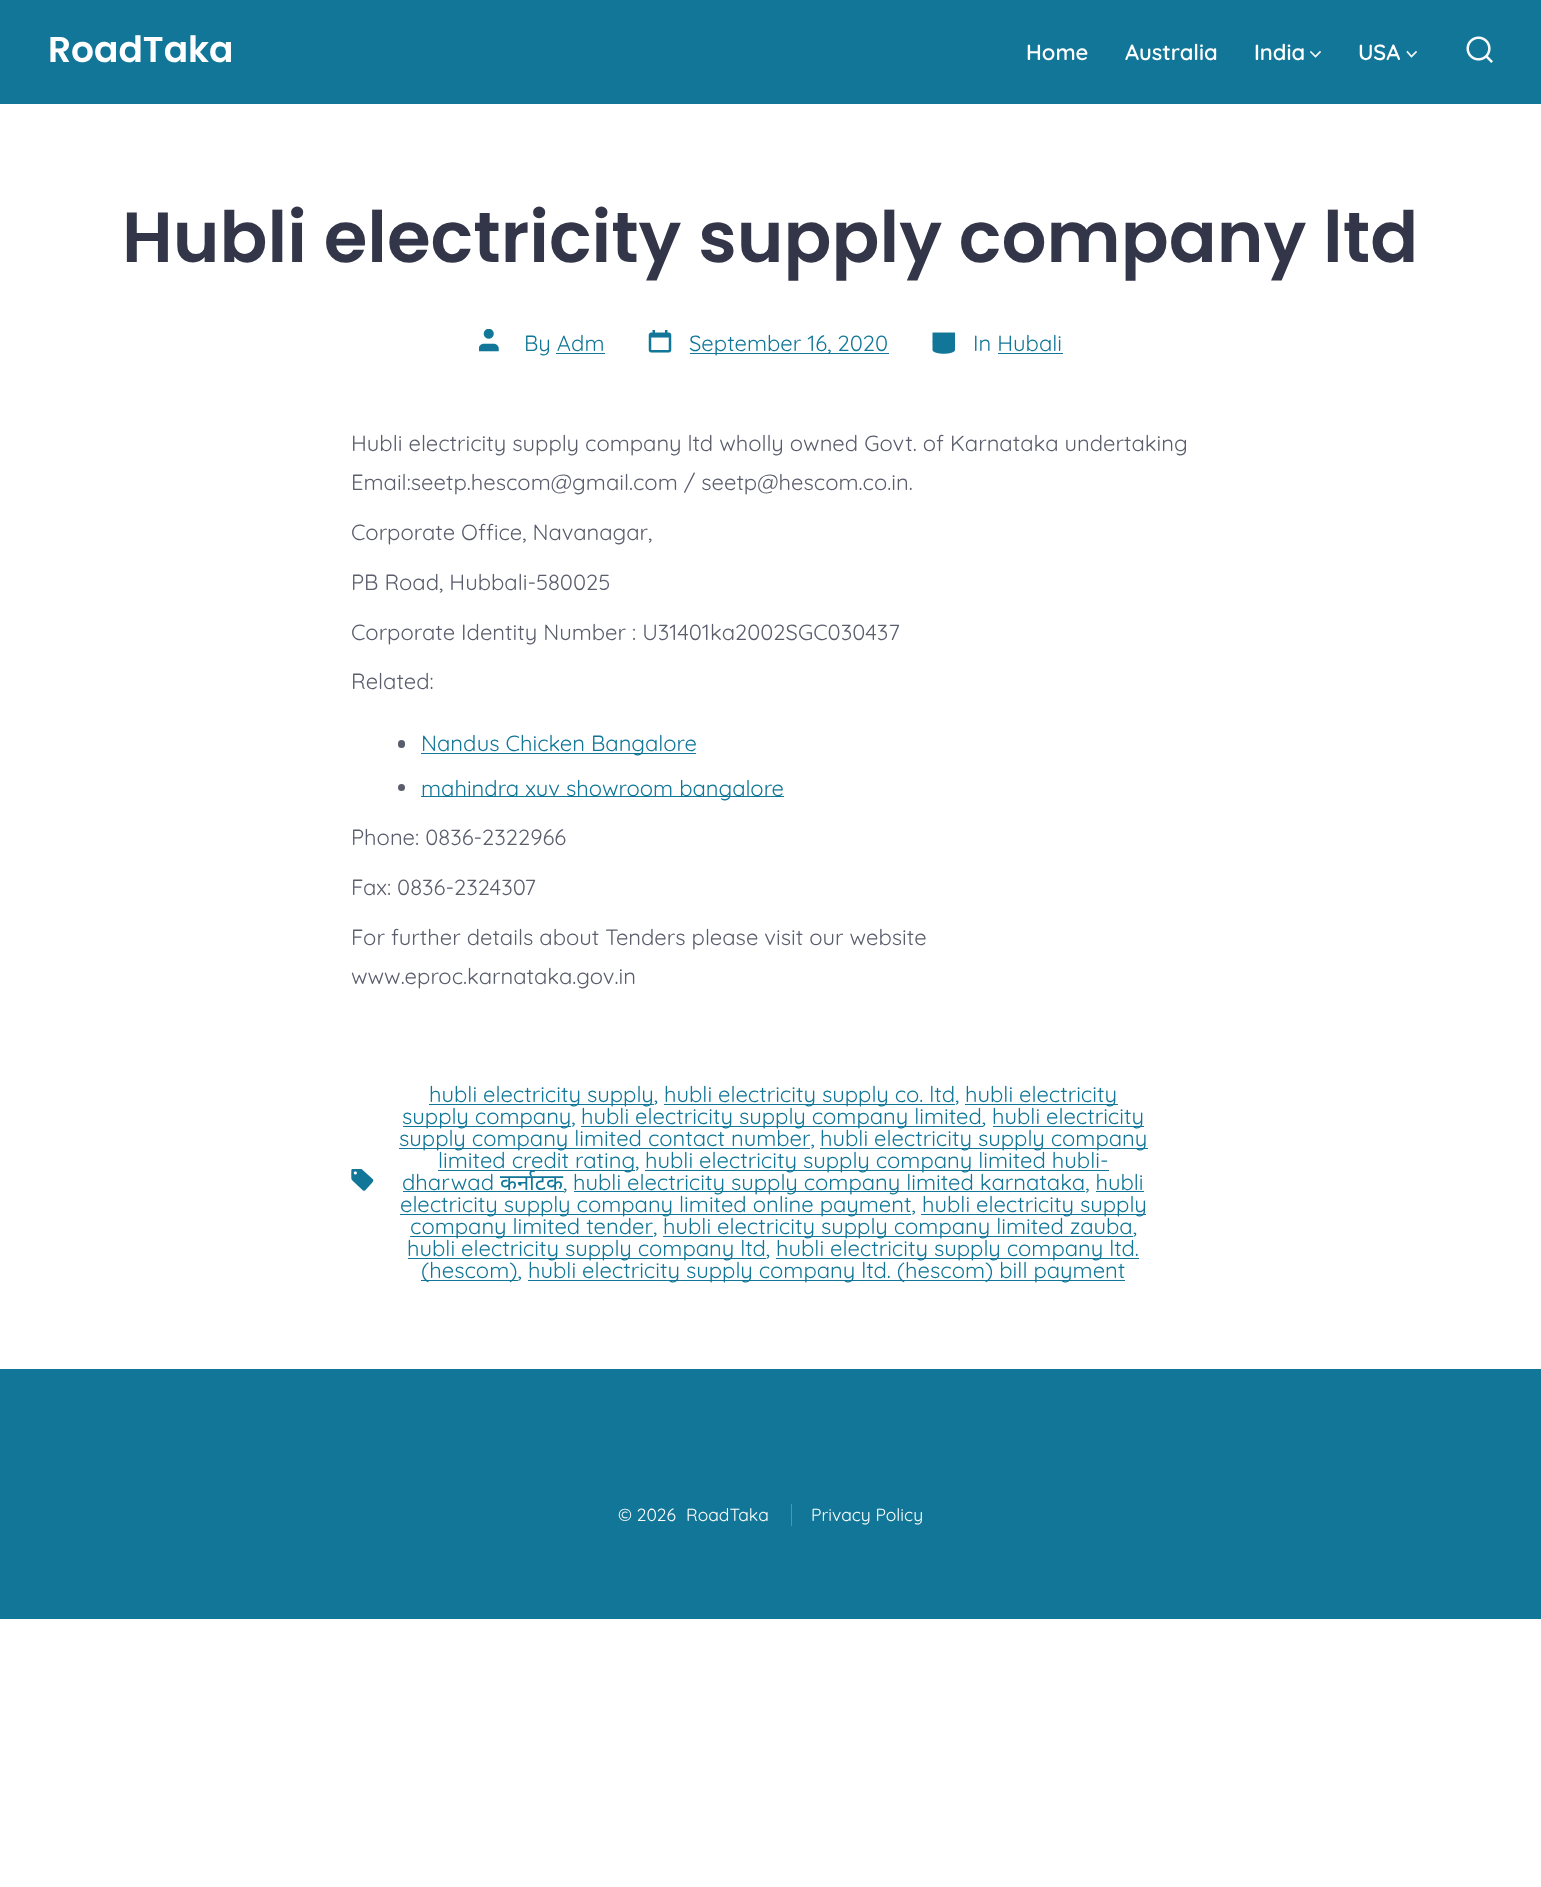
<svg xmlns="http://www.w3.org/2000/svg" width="1541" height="1887">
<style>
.a{font:600 36px Poppins;fill:#fff}
.b{font:600 22px Quicksand;fill:#fff}
.c{font:600 70.75px Poppins;fill:#323648}
.d{font:22px Quicksand;fill:#117697}
.e{font:22px Quicksand;fill:#5a5d6c}
.f{font:22px Noto Sans;fill:#117697}
.g{font:17.5px Quicksand;fill:#fff}
</style>
<rect width="100%" height="100%" fill="#fff"/>
<path fill="#117697" d="M0 0h1541v104H0z"/>
<path fill="none" stroke="#fafafa" stroke-width="1.6" stroke-linecap="square" d="M1311 52l4.5 4.5l4.5-4.5"/>
<path fill="none" stroke="#fafafa" stroke-width="1.6" stroke-linecap="square" d="M1407.5 52l4 4.5l4.5-4.5"/>
<image href="1.png" x="1466" y="36" width="27" height="27"/>
<image href="2.png" x="479" y="329" width="20" height="23"/>
<path fill="#117697" d="M556 353h49v1H556z"/>
<image href="3.png" x="648" y="330" width="24" height="23"/>
<path fill="#117697" d="M690 353h199v1H690z"/>
<image href="4.png" x="932" y="332" width="23" height="22"/>
<path fill="#117697" d="M998 353h65v1H998z"/>
<rect fill="#5a5d6c" x="398" y="740" width="7" height="8" rx="3.5"/>
<path fill="#117697" d="M421 753h275v1H421z"/>
<circle fill="#5a5d6c" cx="401.5" cy="787.5" r="3.5"/>
<path fill="#117697" d="M421 796h363v1H421z"/>
<image href="5.png" x="351" y="1169" width="23" height="22"/>
<path fill="#117697" d="M429 1104h225v1H429z"/>
<path fill="#117697" d="M664 1104h291v1H664z"/>
<path fill="#117697" d="M965 1104h153v1H965z"/>
<path fill="#117697" d="M403 1126h168v1H403z"/>
<path fill="#117697" d="M581 1126h402v1H581z"/>
<path fill="#117697" d="M993 1126h151v1H993z"/>
<path fill="#117697" d="M399 1148h411v1H399z"/>
<path fill="#117697" d="M820 1148h328v1H820z"/>
<path fill="#117697" d="M438 1170h197v1H438z"/>
<path fill="#117697" d="M645 1170h464v1H645z"/>
<path fill="#117697" d="M403 1191h161v1H403z"/>
<path fill="#117697" d="M574 1191h511v1H574z"/>
<path fill="#117697" d="M1096 1191h48v1H1096z"/>
<path fill="#117697" d="M400 1214h511v1H400z"/>
<path fill="#117697" d="M921 1214h225v1H921z"/>
<path fill="#117697" d="M410 1236h243v1H410z"/>
<path fill="#117697" d="M663 1236h470v1H663z"/>
<path fill="#117697" d="M408 1258h358v1H408z"/>
<path fill="#117697" d="M776 1258h363v1H776z"/>
<path fill="#117697" d="M421 1280h97v1H421z"/>
<path fill="#117697" d="M528 1280h597v1H528z"/>
<path fill="#117697" d="M0 1369h1541v250H0z"/>
<path fill="#4d98b1" d="M791 1504h1v22H791z"/>
<text class="a" x="48" y="62">RoadTaka</text>
<text class="b" x="1026" y="60">Home</text>
<text class="b" x="1125" y="60">Australia</text>
<text class="b" x="1254" y="60">India</text>
<text class="b" x="1358" y="60">USA</text>
<text class="c" x="122" y="262">Hubli electricity supply company ltd</text>
<text class="d" x="524" y="351">By Adm</text>
<text class="d" x="689" y="351">September 16, 2020</text>
<text class="d" x="973" y="351">In Hubali</text>
<text class="e" x="351" y="451">Hubli electricity supply company ltd wholly owned Govt. of Karnataka undertaking</text>
<text class="e" x="351" y="490">Email:seetp.hescom@gmail.com / seetp@hescom.co.in.</text>
<text class="e" x="351" y="540">Corporate Office, Navanagar,</text>
<text class="e" x="351" y="590">PB Road, Hubbali-580025</text>
<text class="e" x="351" y="640">Corporate Identity Number : U31401ka2002SGC030437</text>
<text class="e" x="351" y="689">Related:</text>
<text class="d" x="421" y="751">Nandus Chicken Bangalore</text>
<text class="d" x="421" y="796">mahindra xuv showroom bangalore</text>
<text class="e" x="351" y="845">Phone: 0836-2322966</text>
<text class="e" x="351" y="895">Fax: 0836-2324307</text>
<text class="e" x="351" y="945">For further details about Tenders please visit our website</text>
<text class="e" x="351" y="984">www.eproc.karnataka.gov.in</text>
<text class="d" x="429" y="1102">hubli electricity supply,</text>
<text class="d" x="664" y="1102">hubli electricity supply co. ltd,</text>
<text class="d" x="965" y="1102">hubli electricity</text>
<text class="d" x="402" y="1124">supply company,</text>
<text class="d" x="581" y="1124">hubli electricity supply company limited,</text>
<text class="d" x="992" y="1124">hubli electricity</text>
<text class="d" x="399" y="1146">supply company limited contact number,</text>
<text class="d" x="820" y="1146">hubli electricity supply company</text>
<text class="d" x="438" y="1168">limited credit rating,</text>
<text class="d" x="645" y="1168">hubli electricity supply company limited hubli-</text>
<text class="d" x="402" y="1190">dharwad</text>
<text class="f" x="500" y="1190">कर्नाटक</text>
<text class="d" x="563" y="1190">,</text>
<text class="d" x="573" y="1190">hubli electricity supply company limited karnataka, hubli</text>
<text class="d" x="400" y="1212">electricity supply company limited online payment,</text>
<text class="d" x="922" y="1212">hubli electricity supply</text>
<text class="d" x="410" y="1234">company limited tender,</text>
<text class="d" x="663" y="1234">hubli electricity supply company limited zauba,</text>
<text class="d" x="407" y="1256">hubli electricity supply company ltd,</text>
<text class="d" x="776" y="1256">hubli electricity supply company ltd.</text>
<text class="d" x="421" y="1278">(hescom),</text>
<text class="d" x="528" y="1278">hubli electricity supply company ltd. (hescom) bill payment</text>
<text class="g" x="618" y="1521">© 2026</text>
<text class="g" x="686" y="1521">RoadTaka</text>
<text class="g" x="811" y="1521">Privacy Policy</text>
</svg>
